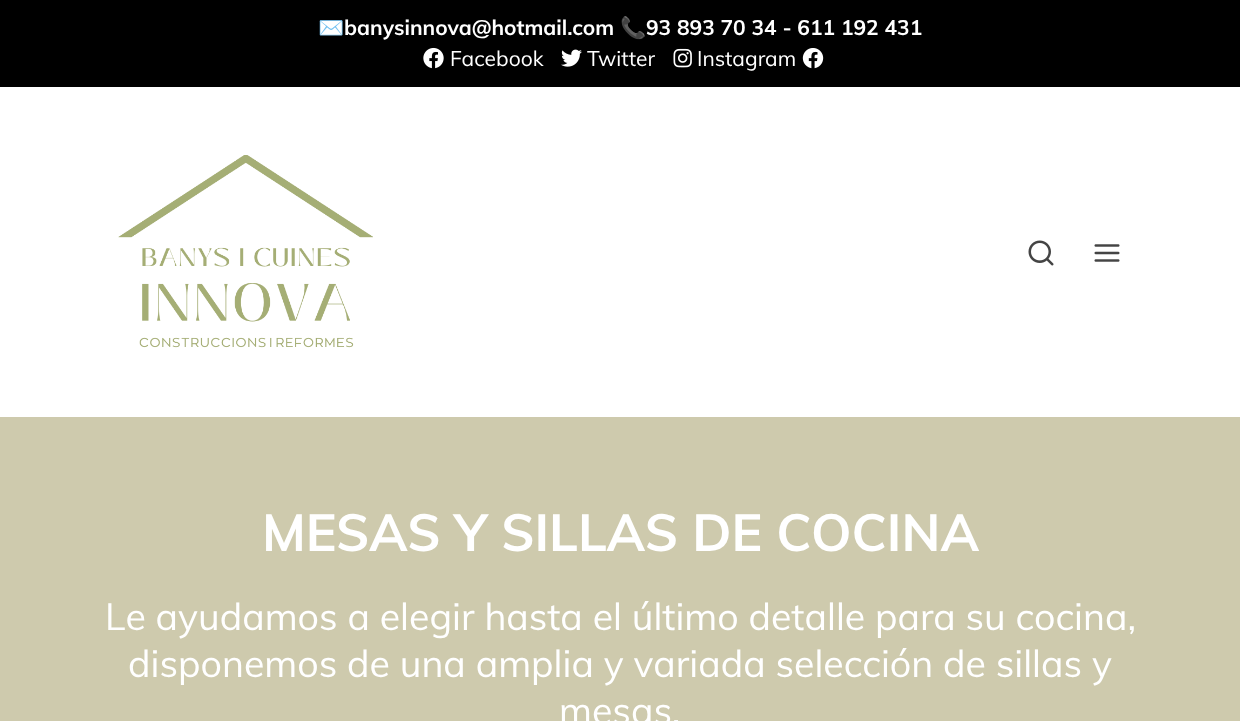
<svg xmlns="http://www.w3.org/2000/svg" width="1240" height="721">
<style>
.a{font:bold 21px Noto Color Emoji;fill:#fff}
.b{font:bold 21px Muli;fill:#fff}
.c{font:21px Muli;fill:#fff}
.d{font:bold 51.6px Muli;fill:#fff}
.e{font:37.5px Muli;fill:#fff}
</style>
<rect width="100%" height="100%" fill="#cecaad"/>
<path fill="#000" d="M0 0h1240v87H0z"/>
<image href="1.png" x="423" y="47" width="21" height="22"/>
<image href="2.png" x="561" y="49" width="21" height="18"/>
<image href="3.png" x="673" y="48" width="19" height="20"/>
<image href="4.png" x="802" y="48" width="22" height="21"/>
<path fill="#fff" d="M0 87h1240v330H0z"/>
<image href="5.png" x="118" y="155" width="255" height="193"/>
<image href="6.png" x="1028" y="240" width="26" height="26"/>
<image href="7.png" x="1094" y="244" width="26" height="18"/>
<text class="a" x="318" y="35">✉️</text>
<text class="b" x="344" y="35">banysinnova@hotmail.com</text>
<text class="a" x="620" y="35">📞</text>
<text class="b" x="646" y="35">93 893 70 34 - 611 192 431</text>
<text class="c" x="450" y="66">Facebook</text>
<text class="c" x="587" y="66">Twitter</text>
<text class="c" x="697" y="66">Instagram</text>
<text class="d" x="262" y="551">MESAS Y SILLAS DE COCINA</text>
<text class="e" x="105" y="630">Le ayudamos a elegir hasta el último detalle para su cocina,</text>
<text class="e" x="128" y="677">disponemos de una amplia y variada selección de sillas y</text>
<text class="e" x="559" y="724">mesas.</text>
</svg>
